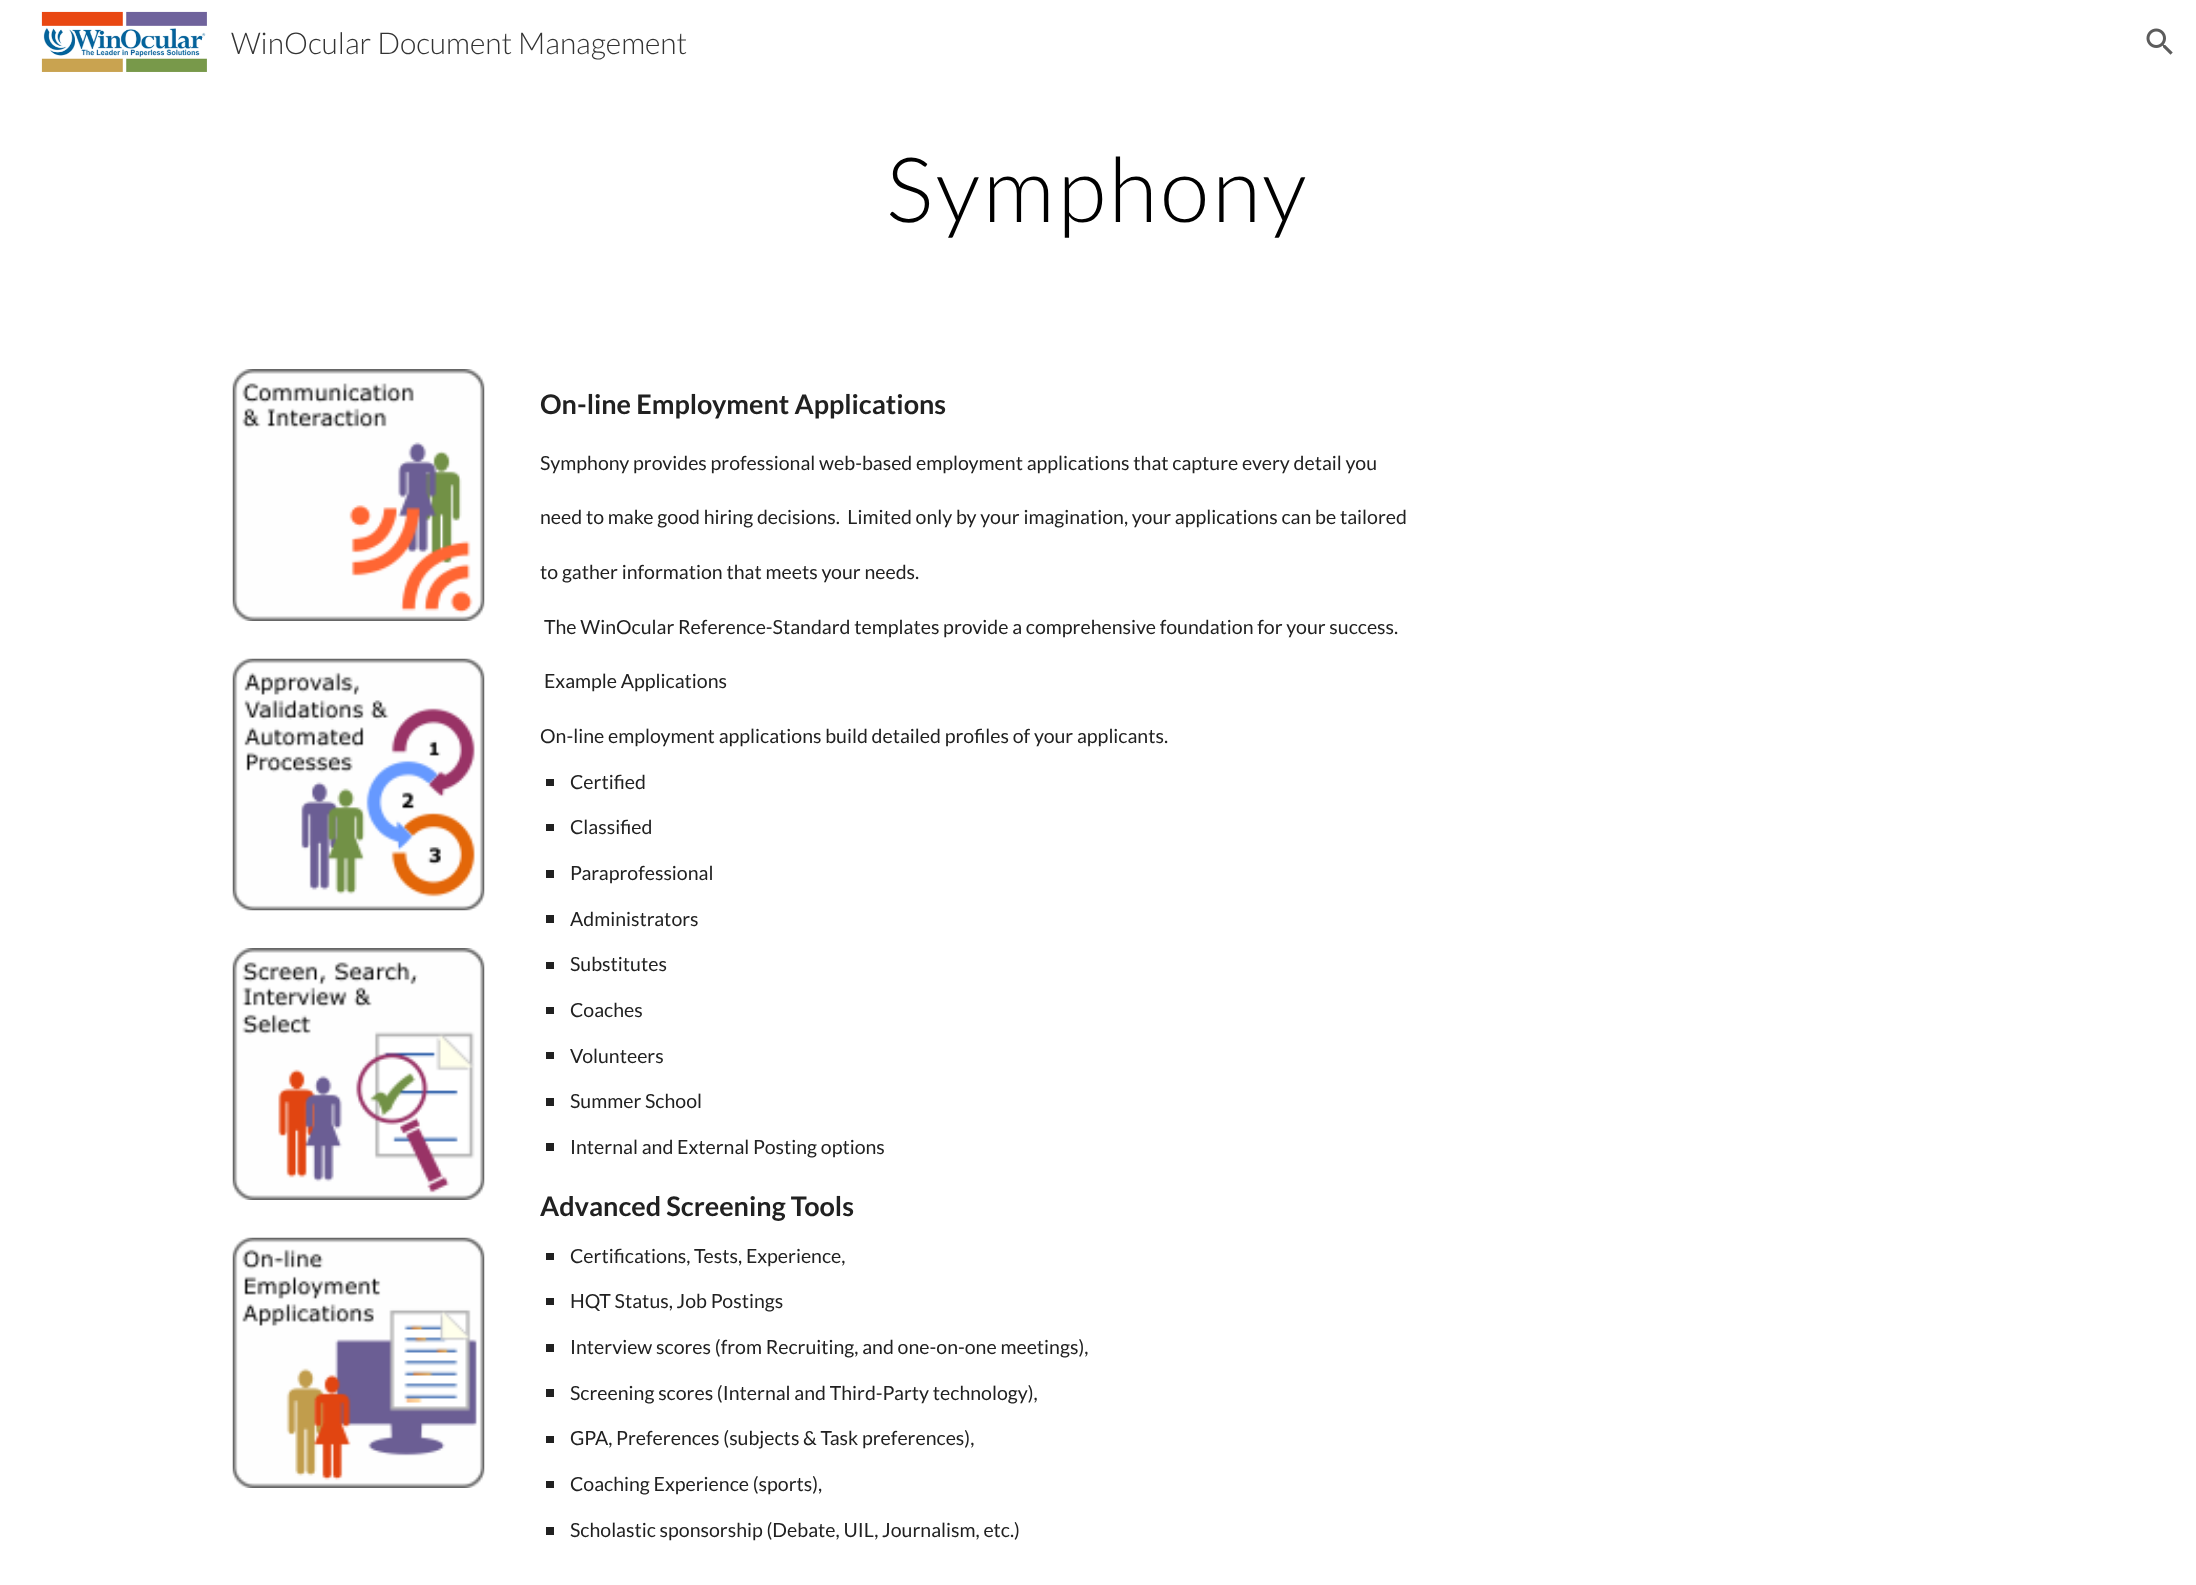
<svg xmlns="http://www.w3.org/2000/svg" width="2196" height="1585">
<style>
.a{font:300 30px Lato;fill:#333}
.b{font:300 90px Lato;letter-spacing:3px;fill:#000}
.c{font:bold 27px Lato;fill:#212121}
.d{font:19.5px Lato;fill:#212121}
</style>
<rect width="100%" height="100%" fill="#fff"/>
<image href="1.png" x="41" y="11" width="166" height="61"/>
<image href="2.png" x="2146" y="28" width="27" height="27"/>
<image href="3.png" x="232" y="369" width="253" height="252"/>
<image href="4.png" x="232" y="658" width="253" height="253"/>
<image href="5.png" x="232" y="948" width="253" height="252"/>
<image href="6.png" x="232" y="1237" width="253" height="251"/>
<path fill="#212121" d="M546 779h8v7H546z"/>
<path fill="#212121" d="M546 824h8v7H546z"/>
<path fill="#212121" d="M546 870h8v8H546z"/>
<path fill="#212121" d="M546 915h8v8H546z"/>
<path fill="#212121" d="M546 962h8v7H546z"/>
<path fill="#212121" d="M546 1007h8v7H546z"/>
<path fill="#212121" d="M546 1052h8v7H546z"/>
<path fill="#212121" d="M546 1098h8v8H546z"/>
<path fill="#212121" d="M546 1143h8v8H546z"/>
<path fill="#212121" d="M546 1253h8v7H546z"/>
<path fill="#212121" d="M546 1298h8v7H546z"/>
<path fill="#212121" d="M546 1344h8v8H546z"/>
<path fill="#212121" d="M546 1389h8v8H546z"/>
<path fill="#212121" d="M546 1436h8v7H546z"/>
<path fill="#212121" d="M546 1481h8v7H546z"/>
<path fill="#212121" d="M546 1527h8v8H546z"/>
<text class="a" x="231" y="54">WinOcular Document Management</text>
<text class="b" x="886" y="222">Symphony</text>
<text class="c" x="540" y="414">On-line Employment Applications</text>
<text class="d" x="540" y="470">Symphony provides professional web-based employment applications that capture every detail you</text>
<text class="d" xml:space="preserve" x="540" y="524">need to make good hiring decisions.  Limited only by your imagination, your applications can be tailored</text>
<text class="d" x="540" y="579">to gather information that meets your needs.</text>
<text class="d" x="544" y="634">The WinOcular Reference-Standard templates provide a comprehensive foundation for your success.</text>
<text class="d" x="544" y="688">Example Applications</text>
<text class="d" x="540" y="743">On-line employment applications build detailed profiles of your applicants.</text>
<text class="d" x="570" y="789">Certified</text>
<text class="d" x="570" y="834">Classified</text>
<text class="d" x="570" y="880">Paraprofessional</text>
<text class="d" x="570" y="926">Administrators</text>
<text class="d" x="570" y="971">Substitutes</text>
<text class="d" x="570" y="1017">Coaches</text>
<text class="d" x="570" y="1063">Volunteers</text>
<text class="d" x="570" y="1108">Summer School</text>
<text class="d" x="570" y="1154">Internal and External Posting options</text>
<text class="c" x="540" y="1216">Advanced Screening Tools</text>
<text class="d" x="570" y="1263">Certifications, Tests, Experience,</text>
<text class="d" x="570" y="1308">HQT Status, Job Postings</text>
<text class="d" x="570" y="1354">Interview scores (from Recruiting, and one-on-one meetings),</text>
<text class="d" x="570" y="1400">Screening scores (Internal and Third-Party technology),</text>
<text class="d" x="570" y="1445">GPA, Preferences (subjects &amp; Task preferences),</text>
<text class="d" x="570" y="1491">Coaching Experience (sports),</text>
<text class="d" x="570" y="1537">Scholastic sponsorship (Debate, UIL, Journalism, etc.)</text>
</svg>
